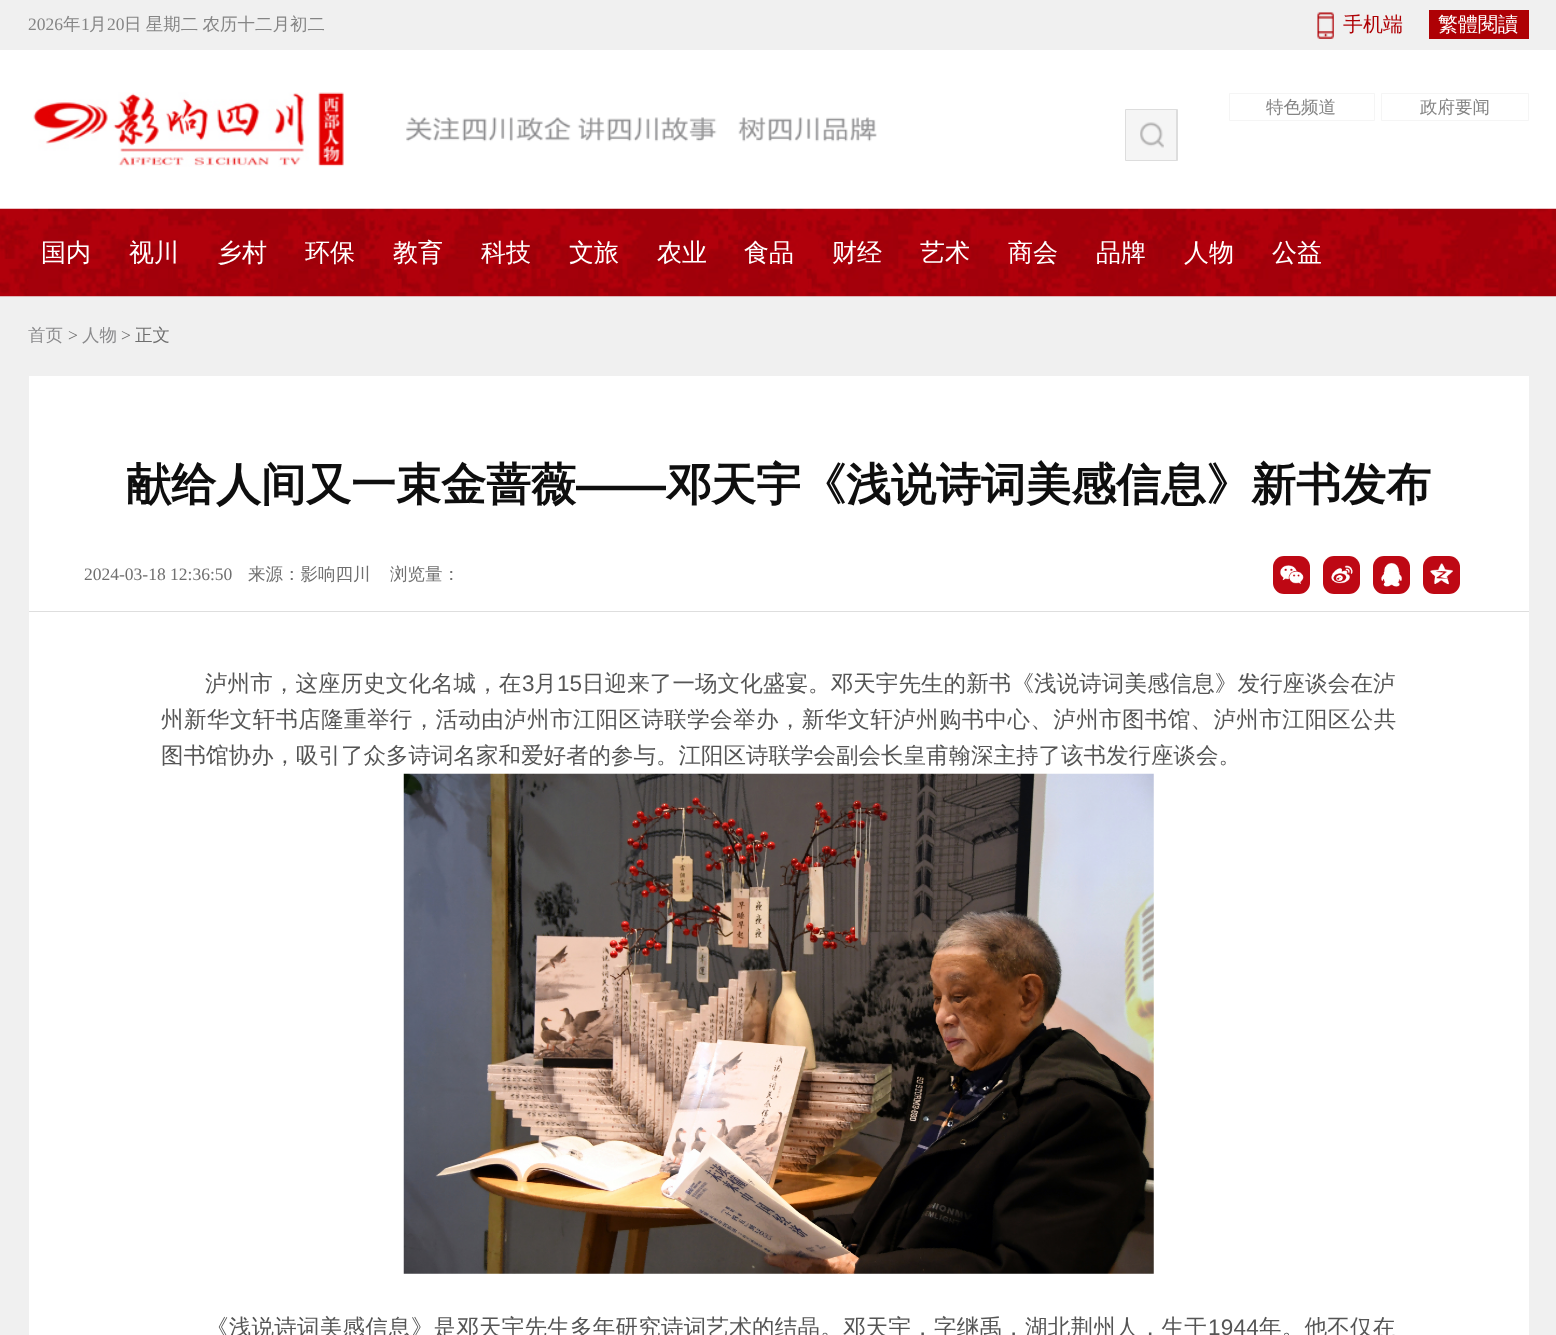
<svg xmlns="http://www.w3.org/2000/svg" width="1556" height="1335">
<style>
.a{font:17.5px Liberation Serif;fill:#858585}
.b{font:500 17.5px WenQuanYi Zen Hei;fill:#858585}
.c{font:500 20px WenQuanYi Zen Hei;fill:#ae0105}
.d{font:500 20px WenQuanYi Zen Hei;fill:#fff}
.e{font:500 25px WenQuanYi Zen Hei;fill:#fff}
.f{font:500 17.5px WenQuanYi Zen Hei;fill:#8b8b8d}
.g{font:17.5px Liberation Serif;fill:#6f6f6f}
.h{font:500 17.5px WenQuanYi Zen Hei;fill:#6f6f6f}
.i{font:bold 45px WenQuanYi Zen Hei;fill:#0e0e0e}
.j{font:bold 45px Liberation Sans;fill:#0e0e0e}
.k{font:500 22.5px WenQuanYi Zen Hei;letter-spacing:0.1px;fill:#555}
.l{font:22.5px Liberation Sans;letter-spacing:0.1px;fill:#555}
.m{font:500 22.5px WenQuanYi Zen Hei;letter-spacing:0.38px;fill:#555}
.n{font:500 22.5px WenQuanYi Zen Hei;fill:#555}
.o{font:500 22.5px WenQuanYi Zen Hei;letter-spacing:0.25px;fill:#555}
.p{font:22.5px Liberation Sans;letter-spacing:0.25px;fill:#555}
</style>
<rect width="100%" height="100%" fill="#f0f0f0"/>
<image href="1.png" x="1317" y="12" width="17" height="27"/>
<path fill="#ae0105" d="M1429 10h100v29H1429z"/>
<path fill="#fff" d="M0 50h1556v159H0z"/>
<image href="2.png" x="406" y="117" width="471" height="25"/>
<image href="3.png" x="33" y="92" width="311" height="75"/>
<path fill="none" stroke="#f5f5f5" d="M1229.5 93.5h145v27H1229.5z"/>
<path fill="none" stroke="#f5f5f5" d="M1381.5 93.5h147v27H1381.5z"/>
<path fill="#f5f5f5" d="M1126 110h50v50H1126z"/>
<image href="4.png" x="1140" y="122" width="24" height="26"/>
<path fill="none" stroke="#ddd" d="M1125.5 109.5h52v51H1125.5z"/>
<path fill="#ddd" d="M1176 109h1v52H1176z"/>
<image href="5.png" x="0" y="208" width="1556" height="89"/>
<path fill="#fff" d="M29 376h1500v959H29z"/>
<path fill="#dedede" d="M29 611h1500v1H29z"/>
<rect fill="#be0814" x="1273" y="556" width="37" height="38" rx="11"/>
<image href="6.png" x="1280" y="565" width="24" height="19"/>
<rect fill="#be0814" x="1323" y="556" width="37" height="38" rx="11"/>
<image href="7.png" x="1331" y="565" width="22" height="19"/>
<rect fill="#be0814" x="1373" y="556" width="37" height="38" rx="11"/>
<image href="8.png" x="1381" y="563" width="21" height="24"/>
<rect fill="#be0814" x="1423" y="556" width="37" height="38" rx="11"/>
<image href="9.png" x="1430" y="563" width="23" height="22"/>
<image href="10.png" x="403" y="773" width="751" height="501"/>
<text class="a" x="28" y="30">2026</text>
<text class="b" x="63" y="30">年</text>
<text class="a" x="81" y="30">1</text>
<text class="b" x="89" y="30">月</text>
<text class="a" x="107" y="30">20</text>
<text class="b" x="124" y="30" word-spacing="-1">日 星期二 农历十二月初二</text>
<text class="c" x="1343" y="31">手机端</text>
<text class="d" x="1438" y="31">繁體閱讀</text>
<text class="b" x="1266" y="113">特色频道</text>
<text class="b" x="1420" y="113">政府要闻</text>
<text class="e" x="41" y="261">国内</text>
<text class="e" x="129" y="261">视川</text>
<text class="e" x="217" y="261">乡村</text>
<text class="e" x="305" y="261">环保</text>
<text class="e" x="393" y="261">教育</text>
<text class="e" x="481" y="261">科技</text>
<text class="e" x="569" y="261">文旅</text>
<text class="e" x="657" y="261">农业</text>
<text class="e" x="744" y="261">食品</text>
<text class="e" x="832" y="261">财经</text>
<text class="e" x="920" y="261">艺术</text>
<text class="e" x="1008" y="261">商会</text>
<text class="e" x="1096" y="261">品牌</text>
<text class="e" x="1184" y="261">人物</text>
<text class="e" x="1272" y="261">公益</text>
<text class="f" x="28" y="341">首页</text>
<text class="g" x="68" y="341">&gt;</text>
<text class="f" x="82" y="341">人物</text>
<text class="g" x="121" y="341">&gt;</text>
<text class="h" x="135" y="341">正文</text>
<text class="i" x="126" y="500">献给人间又一束金蔷薇</text>
<text class="j" x="576" y="500">——</text>
<text class="i" x="666" y="500">邓天宇《浅说诗词美感信息》新书发布</text>
<text class="g" x="84" y="580">2024-03-18 12:36:50</text>
<text class="h" x="248" y="580">来源：影响四川</text>
<text class="h" x="390" y="580">浏览量：</text>
<text class="k" x="205" y="691">泸州市，这座历史文化名城，在</text>
<text class="l" x="522" y="691">3</text>
<text class="k" x="534" y="691">月</text>
<text class="l" x="557" y="691">15</text>
<text class="k" x="582" y="691">日迎来了一场文化盛宴。邓天宇先生的新书《浅说诗词美感信息》发行座谈会在泸</text>
<text class="m" x="161" y="727">州新华文轩书店隆重举行，活动由泸州市江阳区诗联学会举办，新华文轩泸州购书中心、泸州市图书馆、泸州市江阳区公共</text>
<text class="n" x="161" y="763">图书馆协办，吸引了众多诗词名家和爱好者的参与。江阳区诗联学会副会长皇甫翰深主持了该书发行座谈会。</text>
<text class="o" x="206" y="1335">《浅说诗词美感信息》是邓天宇先生多年研究诗词艺术的结晶。邓天宇，字继禹，湖北荆州人，生于</text>
<text class="p" x="1208" y="1335">1944</text>
<text class="o" x="1259" y="1335">年。他不仅在</text>
</svg>
